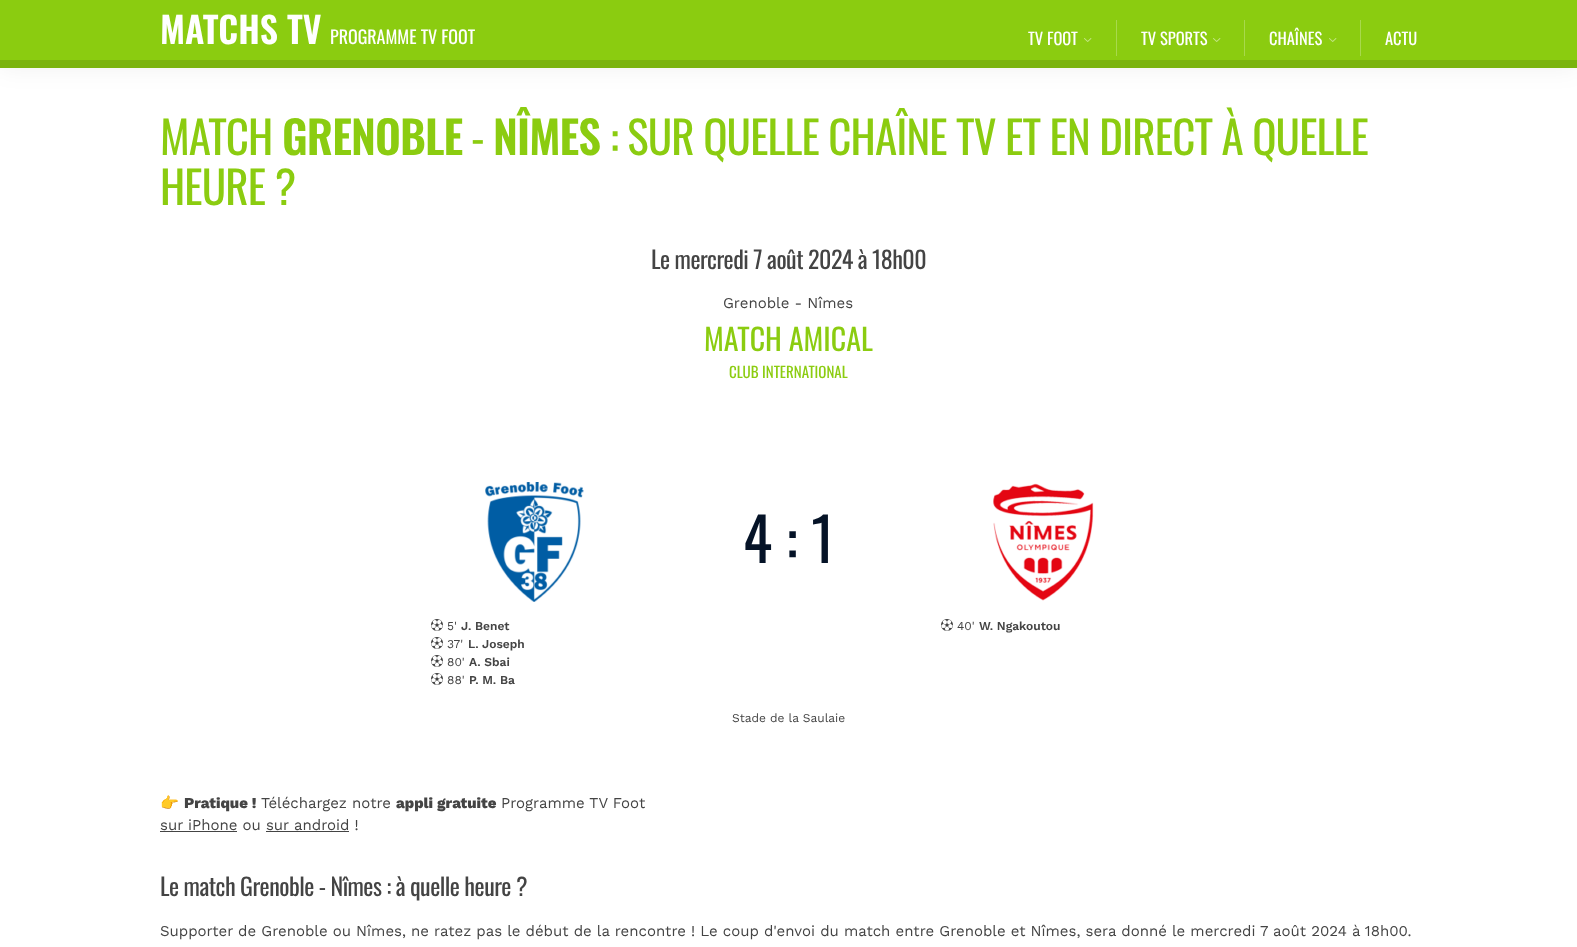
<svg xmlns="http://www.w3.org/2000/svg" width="1577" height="947">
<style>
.a{font:600 36px Oswald;fill:#fff}
.b{font:18px Oswald;fill:#fff}
.c{font:16.5px Oswald;fill:#fff}
.d{font:45px Oswald;letter-spacing:-0.9px;fill:#8bcc10}
.e{font:600 45px Oswald;letter-spacing:-0.9px;fill:#8bcc10}
.f{font:24px Oswald;letter-spacing:-0.5px;fill:#444}
.g{font:15px Work Sans;fill:#444}
.h{font:30px Oswald;fill:#8bcc10}
.i{font:15px Oswald;fill:#8bcc10}
.j{font:60px Oswald;fill:#051327}
.k{font:12px Work Sans;fill:#444}
.l{font:600 12px Work Sans;fill:#444}
.m{font:15px Noto Color Emoji;fill:#444}
.n{font:800 15px Work Sans;fill:#444}
</style>
<rect width="100%" height="100%" fill="#fff"/>
<path fill="#0000000f" filter="blur(12px)" d="M0 0h1577v68H0z"/>
<path fill="#8bcc10" d="M0 0h1577v60H0z"/>
<path fill="#7bb40e" d="M0 60h1577v8H0z"/>
<path fill="#a8d94c" d="M1116 20h1v36H1116z"/>
<image href="1.png" x="1084" y="38" width="8" height="4"/>
<path fill="#a8d94c" d="M1244 20h1v36H1244z"/>
<image href="1.png" x="1213" y="38" width="8" height="4"/>
<path fill="#a8d94c" d="M1360 20h1v36H1360z"/>
<image href="1.png" x="1329" y="38" width="8" height="4"/>
<image href="2.png" x="485" y="482" width="99" height="120"/>
<image href="3.png" x="431" y="619" width="12" height="12"/>
<image href="3.png" x="431" y="637" width="12" height="12"/>
<image href="3.png" x="431" y="655" width="12" height="12"/>
<image href="3.png" x="431" y="673" width="12" height="12"/>
<image href="4.png" x="993" y="483" width="101" height="118"/>
<image href="3.png" x="941" y="619" width="12" height="12"/>
<path fill="#444" d="M160 831h77v1H160z"/>
<path fill="#444" d="M266 831h83v1H266z"/>
<text class="a" x="160" y="44">MATCHS TV</text>
<text class="b" x="330" y="44">PROGRAMME TV FOOT</text>
<text class="c" x="1028" y="45">TV FOOT</text>
<text class="c" x="1141" y="45">TV SPORTS</text>
<text class="c" x="1269" y="45">CHAÎNES</text>
<text class="c" x="1385" y="45">ACTU</text>
<text class="d" x="160" y="155">MATCH</text>
<text class="e" x="282" y="155">GRENOBLE</text>
<text class="d" x="471" y="155">-</text>
<text class="e" x="493" y="155">NÎMES</text>
<text class="d" x="610" y="155">: SUR QUELLE CHAÎNE TV ET EN DIRECT À QUELLE</text>
<text class="d" x="160" y="205">HEURE ?</text>
<text class="f" x="651" y="269">Le mercredi 7 août 2024 à 18h00</text>
<text class="g" x="723" y="308">Grenoble - Nîmes</text>
<text class="h" x="704" y="351">MATCH AMICAL</text>
<text class="i" x="729" y="378">CLUB INTERNATIONAL</text>
<text class="j" x="743" y="563">4 : 1</text>
<text class="k" x="447" y="630">5'</text>
<text class="l" x="461" y="630">J. Benet</text>
<text class="k" x="447" y="648">37'</text>
<text class="l" x="468" y="648">L. Joseph</text>
<text class="k" x="447" y="666">80'</text>
<text class="l" x="469" y="666">A. Sbai</text>
<text class="k" x="447" y="684">88'</text>
<text class="l" x="469" y="684">P. M. Ba</text>
<text class="k" x="957" y="630">40'</text>
<text class="l" x="979" y="630">W. Ngakoutou</text>
<text class="k" x="732" y="722">Stade de la Saulaie</text>
<text class="m" x="160" y="808">👉</text>
<text class="n" x="184" y="808">Pratique !</text>
<text class="g" x="261" y="808">Téléchargez notre</text>
<text class="n" x="396" y="808">appli gratuite</text>
<text class="g" x="501" y="808">Programme TV Foot</text>
<text class="g" x="160" y="830">sur iPhone ou sur android !</text>
<text class="f" x="160" y="896">Le match Grenoble - Nîmes : à quelle heure ?</text>
<text class="g" x="160" y="936">Supporter de Grenoble ou Nîmes, ne ratez pas le début de la rencontre ! Le coup d'envoi du match entre Grenoble et Nîmes, sera donné le mercredi 7 août 2024 à 18h00.</text>
</svg>
